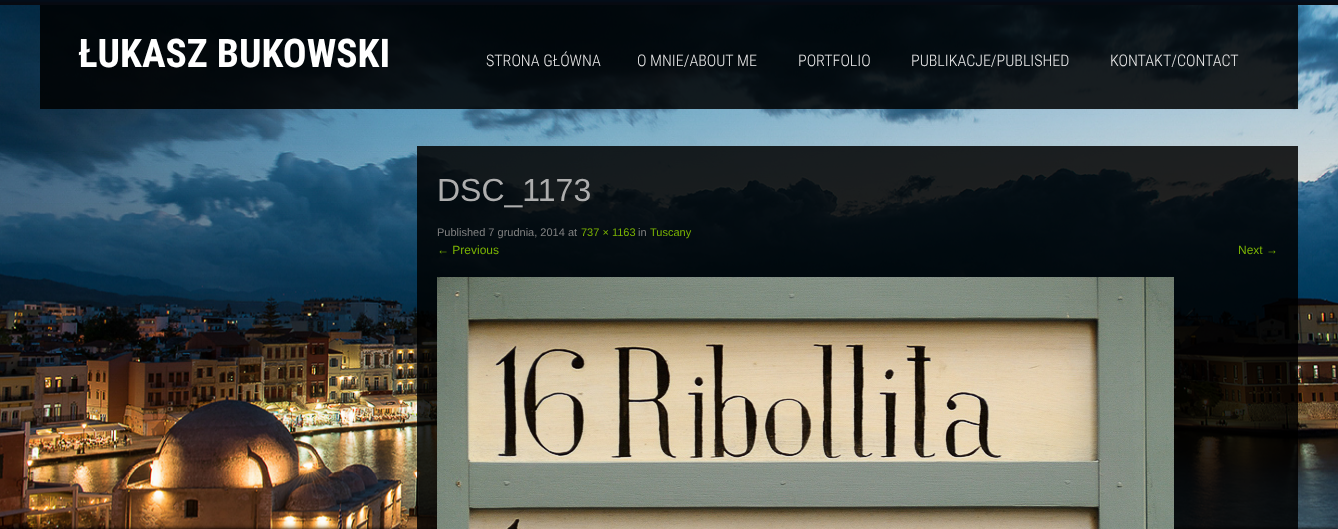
<svg xmlns="http://www.w3.org/2000/svg" width="1338" height="529">
<style>
.a{font:bold 39.5px Roboto Condensed;fill:#fff}
.b{font:300 16px Roboto Condensed;fill:#eeeded}
.c{font:32px Liberation Sans;fill:#aeaeae}
.d{font:11px Liberation Sans;fill:#808080}
.e{font:11px Liberation Sans;fill:#7bb303}
.f{font:12px Liberation Sans;fill:#7bb303}
</style>
<rect width="100%" height="100%" fill="#fff"/>
<image href="1.png" x="0" y="5" width="1338" height="524"/>
<image href="2.png" x="0" y="0" width="1338" height="5"/>
<path fill="#000000d9" d="M40 5h1258v104H40z"/>
<path fill="#000" filter="blur(2px)" d="M0 529h1338v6H0z"/>
<path fill="#000000d9" d="M417 146h881v383H417z"/>
<image href="3.png" x="437" y="277" width="737" height="252"/>
<text class="a" x="78" y="67">ŁUKASZ BUKOWSKI</text>
<text class="b" x="486" y="66">STRONA GŁÓWNA</text>
<text class="b" x="637" y="66">O MNIE/ABOUT ME</text>
<text class="b" x="798" y="66">PORTFOLIO</text>
<text class="b" x="911" y="66">PUBLIKACJE/PUBLISHED</text>
<text class="b" x="1110" y="66">KONTAKT/CONTACT</text>
<text class="c" x="437" y="201">DSC_1173</text>
<text class="d" x="437" y="236">Published 7 grudnia, 2014 at</text>
<text class="e" x="581" y="236">737 × 1163</text>
<text class="d" x="638" y="236">in</text>
<text class="e" x="650" y="236">Tuscany</text>
<text class="f" x="437" y="254">← Previous</text>
<text class="f" x="1238" y="254">Next →</text>
</svg>
